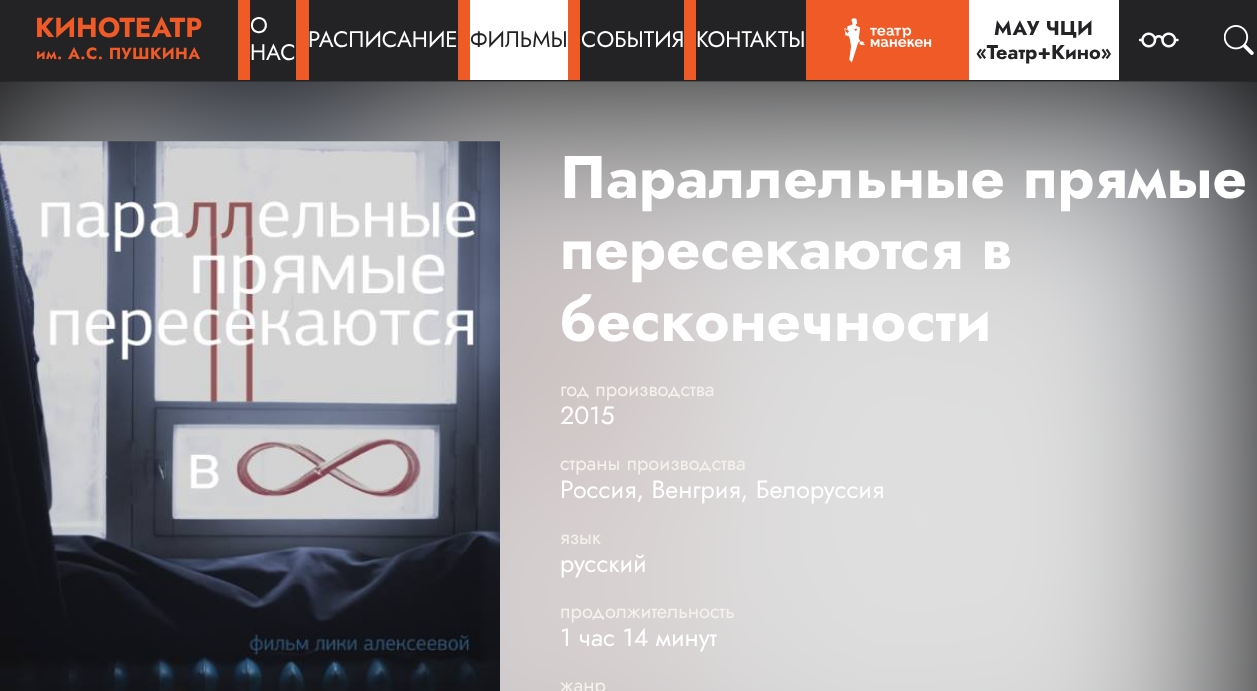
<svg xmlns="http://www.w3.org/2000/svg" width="1257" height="691">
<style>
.a{font:bold 27.5px Jost;fill:#ef5a26}
.b{font:bold 16.25px Jost;letter-spacing:0.4px;fill:#ef5a26}
.c{font:22.5px Jost;fill:#fff}
.d{font:22.5px Jost;fill:#232325}
.e{font:bold 20px Jost;fill:#232325}
.f{font:bold 60px Jost;fill:#fff}
.g{font:20px Jost;fill:#f5f2ed}
.h{font:25px Jost;fill:#fff}
</style>
<rect width="100%" height="100%" fill="#232325"/>
<path fill="#ef5a26" d="M238 0h12v80H238z"/>
<path fill="#ef5a26" d="M296 0h13v80H296z"/>
<path fill="#ef5a26" d="M458 0h12v80H458z"/>
<path fill="#fff" d="M470 0h98v80H470z"/>
<path fill="#ef5a26" d="M568 0h12v80H568z"/>
<path fill="#ef5a26" d="M684 0h12v80H684z"/>
<path fill="#ef5a26" d="M806 0h163v80H806z"/>
<image href="1.png" x="844" y="18" width="88" height="45"/>
<path fill="#fff" d="M969 0h150v80H969z"/>
<image href="2.png" x="1139" y="32" width="40" height="16"/>
<image href="3.png" x="1224" y="25" width="30" height="30"/>
<path fill="#000" d="M0 81h1257v610H0z"/>
<image href="4.png" x="0" y="81" width="1257" height="610"/>
<image href="5.png" x="0" y="141" width="500" height="550"/>
<text class="a" x="35" y="37">КИНОТЕАТР</text>
<text class="b" x="36" y="59">им. А.С. ПУШКИНА</text>
<text class="c" x="250" y="33">О</text>
<text class="c" x="250" y="60">НАС</text>
<text class="c" x="308" y="47">РАСПИСАНИЕ</text>
<text class="d" x="470" y="47">ФИЛЬМЫ</text>
<text class="c" x="581" y="47">СОБЫТИЯ</text>
<text class="c" x="696" y="47">КОНТАКТЫ</text>
<text class="e" x="994" y="35">МАУ ЧЦИ</text>
<text class="e" x="976" y="59">«Театр+Кино»</text>
<text class="f" x="560" y="198">Параллельные прямые</text>
<text class="f" x="560" y="269">пересекаются в</text>
<text class="f" x="560" y="341">бесконечности</text>
<text class="g" x="560" y="396">год производства</text>
<text class="h" x="560" y="424">2015</text>
<text class="g" x="560" y="470">страны производства</text>
<text class="h" x="560" y="498">Россия, Венгрия, Белоруссия</text>
<text class="g" x="560" y="544">язык</text>
<text class="h" x="560" y="572">русский</text>
<text class="g" x="560" y="618">продолжительность</text>
<text class="h" x="560" y="646">1 час 14 минут</text>
<text class="g" x="560" y="692">жанр</text>
</svg>
